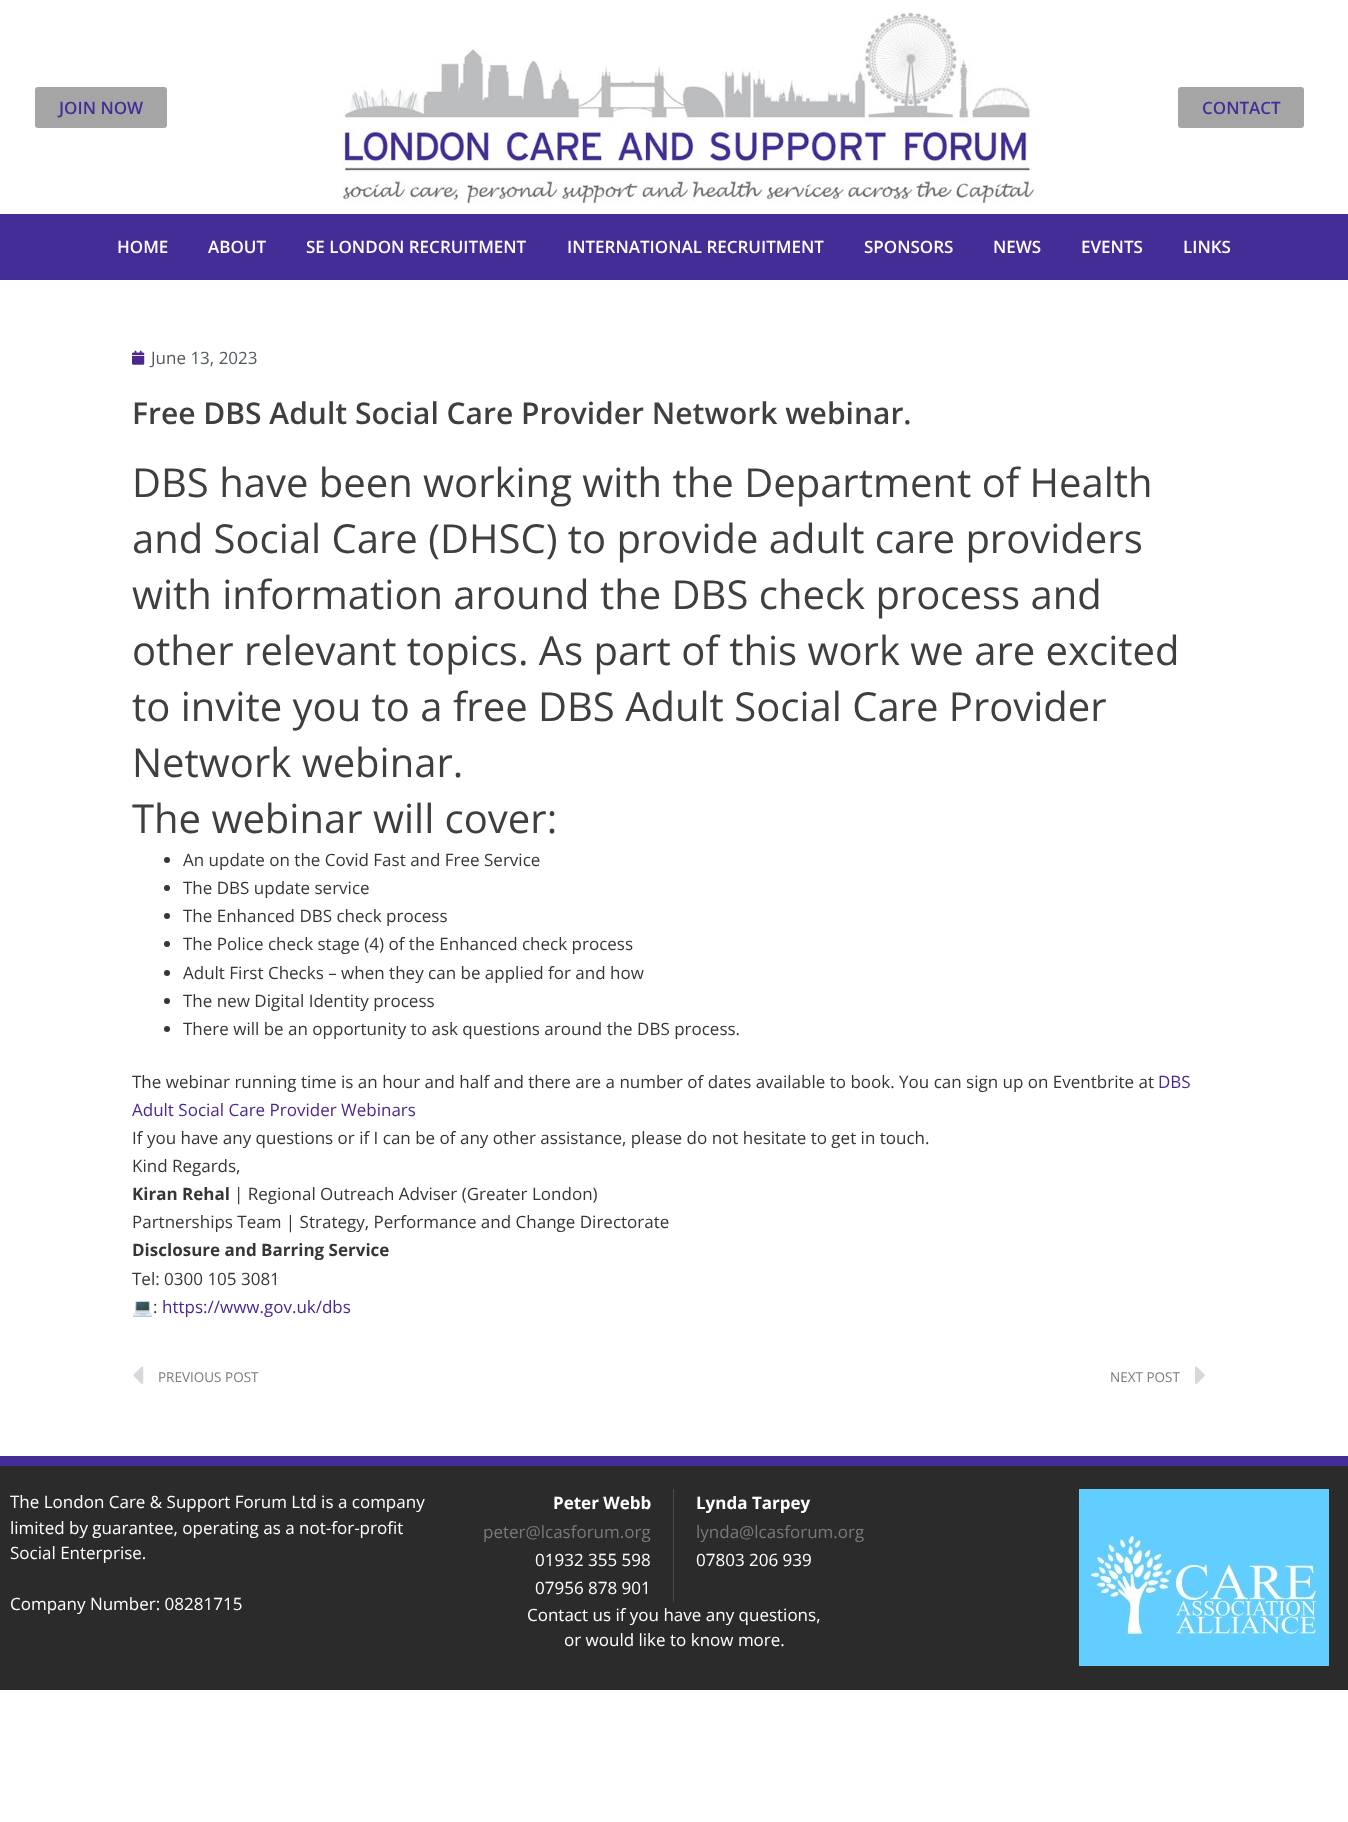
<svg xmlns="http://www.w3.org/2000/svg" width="1348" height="1822">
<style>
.a{font:600 17px Open Sans;fill:#442d97}
.b{font:600 17px Open Sans;fill:#fff}
.c{font:17px Open Sans;fill:#54595f}
.d{font:600 30px Open Sans;fill:#3f3f3f}
.e{font:40px Open Sans;fill:#3f3f3f}
.f{font:17px Open Sans;fill:#363636}
.g{font:17px Open Sans;fill:#4b2790}
.h{font:bold 17px Open Sans;fill:#363636}
.i{font:17px Noto Color Emoji;fill:#363636}
.j{font:13.5px Open Sans;fill:#7a7a7a}
.k{font:17px Open Sans;fill:#fff}
.l{font:bold 17px Open Sans;fill:#fff}
.m{font:17px Open Sans;fill:#7a7a7a}
</style>
<rect width="100%" height="100%" fill="#fff"/>
<rect fill="#a5a5a5" x="35" y="87" width="132" height="41" rx="3"/>
<image href="1.png" x="342" y="10" width="693" height="194"/>
<rect fill="#a5a5a5" x="1178" y="87" width="126" height="41" rx="3"/>
<path fill="#442d97" d="M0 214h1348v66H0z"/>
<image href="2.png" x="132" y="350" width="13" height="15"/>
<circle fill="#363636" cx="167" cy="860" r="3"/>
<circle fill="#363636" cx="167" cy="888" r="3"/>
<circle fill="#363636" cx="167" cy="916" r="3"/>
<circle fill="#363636" cx="167" cy="944" r="3"/>
<circle fill="#363636" cx="167" cy="973" r="3"/>
<circle fill="#363636" cx="167" cy="1001" r="3"/>
<circle fill="#363636" cx="167" cy="1029" r="3"/>
<image href="3.png" x="133" y="1366" width="11" height="18"/>
<image href="4.png" x="1195" y="1366" width="10" height="18"/>
<path fill="#2b2b2b" d="M0 1466h1348v224H0z"/>
<path fill="#442d97" d="M0 1456h1348v10H0z"/>
<path fill="#4a4a4a" d="M673 1489h1v113H673z"/>
<image href="5.png" x="1079" y="1489" width="250" height="177"/>
<text class="a" x="59" y="114">JOIN NOW</text>
<text class="a" x="1202" y="114">CONTACT</text>
<text class="b" x="117" y="253">HOME</text>
<text class="b" x="208" y="253">ABOUT</text>
<text class="b" x="306" y="253">SE LONDON RECRUITMENT</text>
<text class="b" x="567" y="253">INTERNATIONAL RECRUITMENT</text>
<text class="b" x="864" y="253">SPONSORS</text>
<text class="b" x="993" y="253">NEWS</text>
<text class="b" x="1081" y="253">EVENTS</text>
<text class="b" x="1183" y="253">LINKS</text>
<text class="c" x="151" y="364">June 13, 2023</text>
<text class="d" x="132" y="424">Free DBS Adult Social Care Provider Network webinar.</text>
<text class="e" x="132" y="497">DBS have been working with the Department of Health</text>
<text class="e" x="132" y="553">and Social Care (DHSC) to provide adult care providers</text>
<text class="e" x="132" y="609">with information around the DBS check process and</text>
<text class="e" x="132" y="665">other relevant topics. As part of this work we are excited</text>
<text class="e" x="132" y="721">to invite you to a free DBS Adult Social Care Provider</text>
<text class="e" x="132" y="777">Network webinar.</text>
<text class="e" x="132" y="833">The webinar will cover:</text>
<text class="f" x="183" y="866">An update on the Covid Fast and Free Service</text>
<text class="f" x="183" y="894">The DBS update service</text>
<text class="f" x="183" y="922">The Enhanced DBS check process</text>
<text class="f" x="183" y="950">The Police check stage (4) of the Enhanced check process</text>
<text class="f" x="183" y="979">Adult First Checks – when they can be applied for and how</text>
<text class="f" x="183" y="1007">The new Digital Identity process</text>
<text class="f" x="183" y="1035">There will be an opportunity to ask questions around the DBS process.</text>
<text class="f" x="132" y="1088">The webinar running time is an hour and half and there are a number of dates available to book. You can sign up on Eventbrite at</text>
<text class="g" x="1158" y="1088">DBS</text>
<text class="g" x="132" y="1116">Adult Social Care Provider Webinars</text>
<text class="f" x="132" y="1144">If you have any questions or if I can be of any other assistance, please do not hesitate to get in touch.</text>
<text class="f" x="132" y="1172">Kind Regards,</text>
<text class="h" x="132" y="1200">Kiran Rehal</text>
<text class="f" x="234" y="1200">| Regional Outreach Adviser (Greater London)</text>
<text class="f" x="132" y="1228">Partnerships Team | Strategy, Performance and Change Directorate</text>
<text class="h" x="132" y="1256">Disclosure and Barring Service</text>
<text class="f" x="132" y="1285">Tel: 0300 105 3081</text>
<text class="i" x="132" y="1313">💻</text>
<text class="f" x="153" y="1313">:</text>
<text class="g" x="162" y="1313">https://www.gov.uk/dbs</text>
<text class="j" x="158" y="1382">PREVIOUS POST</text>
<text class="j" x="1110" y="1382">NEXT POST</text>
<text class="k" x="10" y="1508">The London Care &amp; Support Forum Ltd is a company</text>
<text class="k" x="10" y="1534">limited by guarantee, operating as a not-for-profit</text>
<text class="k" x="10" y="1559">Social Enterprise.</text>
<text class="k" x="10" y="1610">Company Number: 08281715</text>
<text class="l" x="553" y="1509">Peter Webb</text>
<text class="m" x="483" y="1538">peter@lcasforum.org</text>
<text class="k" x="535" y="1566">01932 355 598</text>
<text class="k" x="535" y="1594">07956 878 901</text>
<text class="l" x="696" y="1509">Lynda Tarpey</text>
<text class="m" x="696" y="1538">lynda@lcasforum.org</text>
<text class="k" x="696" y="1566">07803 206 939</text>
<text class="k" x="527" y="1621">Contact us if you have any questions,</text>
<text class="k" x="564" y="1646">or would like to know more.</text>
</svg>
